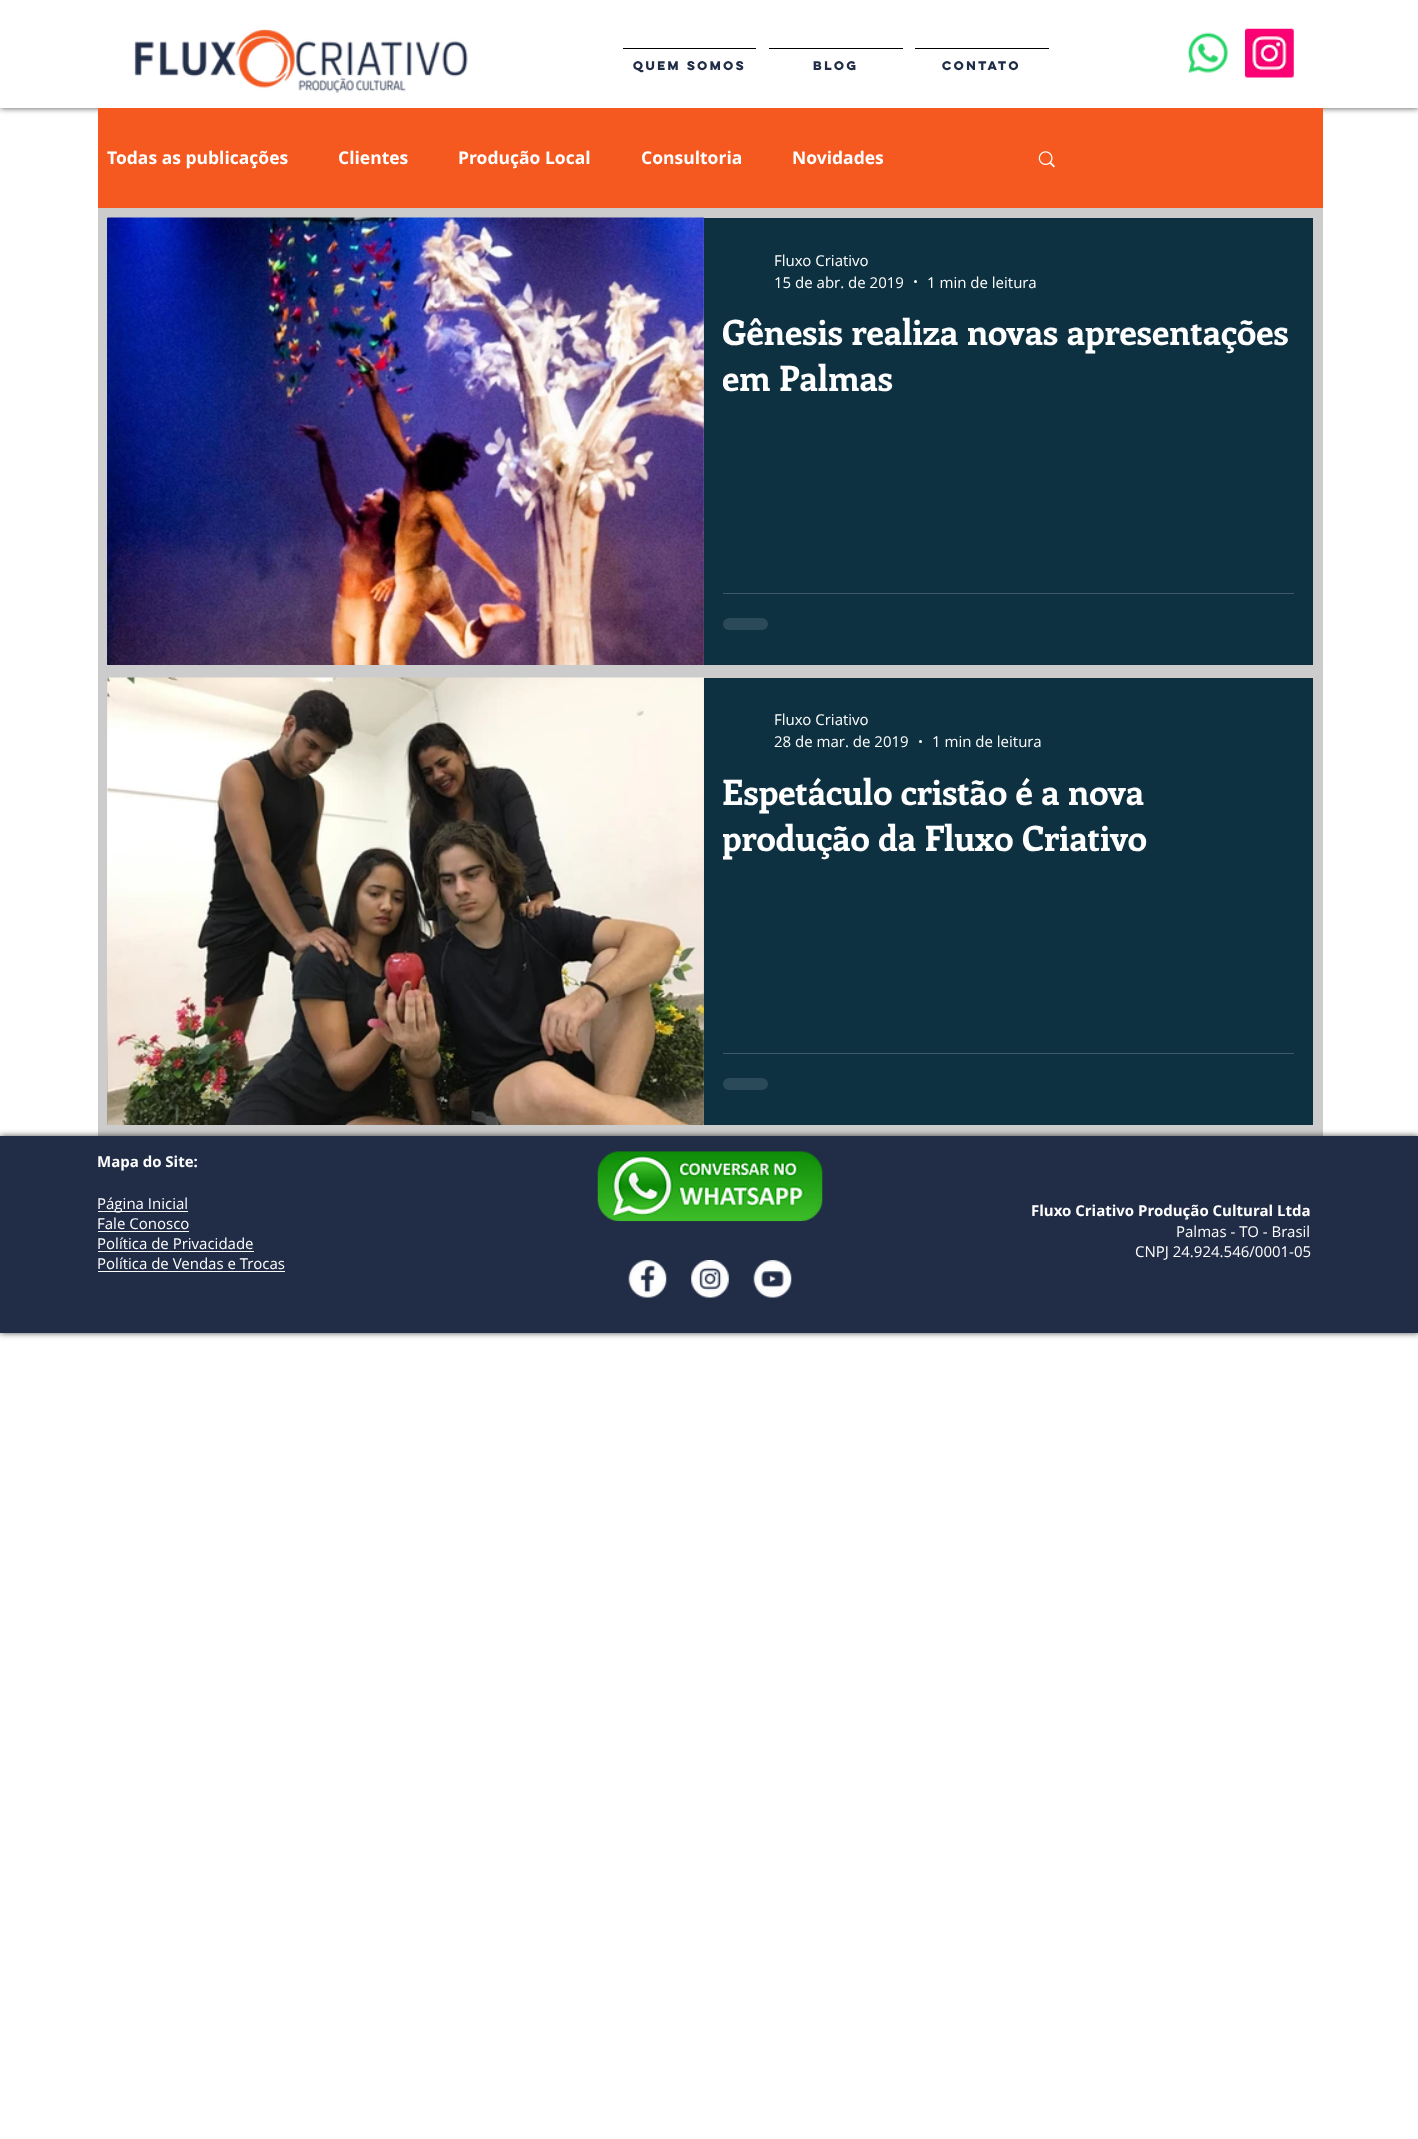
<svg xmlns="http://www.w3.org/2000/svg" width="1418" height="2139">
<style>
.a{font:bold 11.25px 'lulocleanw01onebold';fill:#212d47}
.b{font:bold 17.5px Open Sans;fill:#fff}
.c{font:15px Open Sans;fill:#fff}
.d{font:bold 35px Enriqueta;fill:#fff}
.e{font:bold 15px Open Sans;fill:#fff}
</style>
<defs>
<clipPath id="clip1"><path d="M723 308h571v92H723z"/></clipPath>
<clipPath id="clip2"><path d="M723 768h571v92H723z"/></clipPath>
</defs>
<rect width="100%" height="100%" fill="#fff"/>
<path fill="#000000b3" filter="blur(3px)" d="M0 0h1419v108H0z"/>
<path fill="#fff" d="M0 0h1418v108H0z"/>
<image href="1.png" x="134" y="28" width="334" height="65"/>
<path fill="#000" d="M623 48h133v1H623z"/>
<path fill="#000" d="M769 48h134v1H769z"/>
<path fill="#000" d="M915 48h134v1H915z"/>
<image href="2.png" x="1187" y="32" width="41" height="41"/>
<image href="3.png" x="1245" y="28" width="49" height="50"/>
<path fill="#ccc" d="M98 208h1225v928H98z"/>
<path fill="#f55920" d="M98 108h1225v100H98z"/>
<image href="4.png" x="1038" y="151" width="17" height="17"/>
<image href="6.png" x="107" y="218" width="597" height="447"/>
<image href="5.png" x="107" y="217" width="597" height="448"/>
<path fill="#0e3142" d="M704 218h609v447H704z"/>
<circle fill="#fff" cx="915.5" cy="281.5" r="1.5"/>
<path fill="#3e5a68" d="M723 593h571v1H723z"/>
<rect fill="#2b4a59" x="723" y="618" width="45" height="12" rx="6"/>
<image href="8.png" x="107" y="678" width="597" height="447"/>
<image href="7.png" x="107" y="677" width="597" height="448"/>
<path fill="#0e3142" d="M704 678h609v447H704z"/>
<circle fill="#fff" cx="920.5" cy="741.5" r="1.5"/>
<path fill="#3e5a68" d="M723 1053h571v1H723z"/>
<rect fill="#2b4a59" x="723" y="1078" width="45" height="12" rx="6"/>
<path fill="#000000b3" filter="blur(3px)" d="M0 1136h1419v197H0z"/>
<path fill="#212d47" d="M0 1136h1418v197H0z"/>
<path fill="#fff" d="M98 1211h90v1H98z"/>
<path fill="#fff" d="M98 1231h91v1H98z"/>
<path fill="#fff" d="M98 1251h156v1H98z"/>
<path fill="#fff" d="M98 1271h187v1H98z"/>
<image href="9.png" x="597" y="1151" width="226" height="71"/>
<image href="10.png" x="628" y="1260" width="39" height="38"/>
<image href="11.png" x="691" y="1260" width="38" height="38"/>
<image href="12.png" x="753" y="1260" width="39" height="38"/>
<text class="a" x="633" y="70">Quem somos</text>
<text class="a" x="813" y="70">Blog</text>
<text class="a" x="942" y="70">Contato</text>
<text class="b" x="107" y="164">Todas as publicações</text>
<text class="b" x="338" y="164">Clientes</text>
<text class="b" x="458" y="164">Produção Local</text>
<text class="b" x="641" y="164">Consultoria</text>
<text class="b" x="792" y="164">Novidades</text>
<text class="c" x="774" y="266">Fluxo Criativo</text>
<text class="c" x="774" y="288">15 de abr. de 2019</text>
<text class="c" x="927" y="288">1 min de leitura</text>
<g clip-path="url(#clip1)">
<text class="d" x="722" y="345">Gênesis realiza novas apresentações</text>
<text class="d" x="722" y="391">em Palmas</text>
</g>
<text class="c" x="774" y="725">Fluxo Criativo</text>
<text class="c" x="774" y="747">28 de mar. de 2019</text>
<text class="c" x="932" y="747">1 min de leitura</text>
<text class="d" x="722" y="805">Espetáculo cristão é a nova</text>
<g clip-path="url(#clip2)">
<text class="d" x="722" y="851">produção da Fluxo Criativo</text>
</g>
<text class="e" x="97" y="1167">Mapa do Site:</text>
<text class="c" x="97" y="1209">Página Inicial</text>
<text class="c" x="97" y="1229">Fale Conosco</text>
<text class="c" x="97" y="1249">Política de Privacidade</text>
<text class="c" x="97" y="1269">Política de Vendas e Trocas</text>
<text class="e" x="1031" y="1216">Fluxo Criativo Produção Cultural Ltda</text>
<text class="c" x="1176" y="1237">Palmas - TO - Brasil</text>
<text class="c" x="1135" y="1257">CNPJ 24.924.546/0001-05</text>
</svg>
